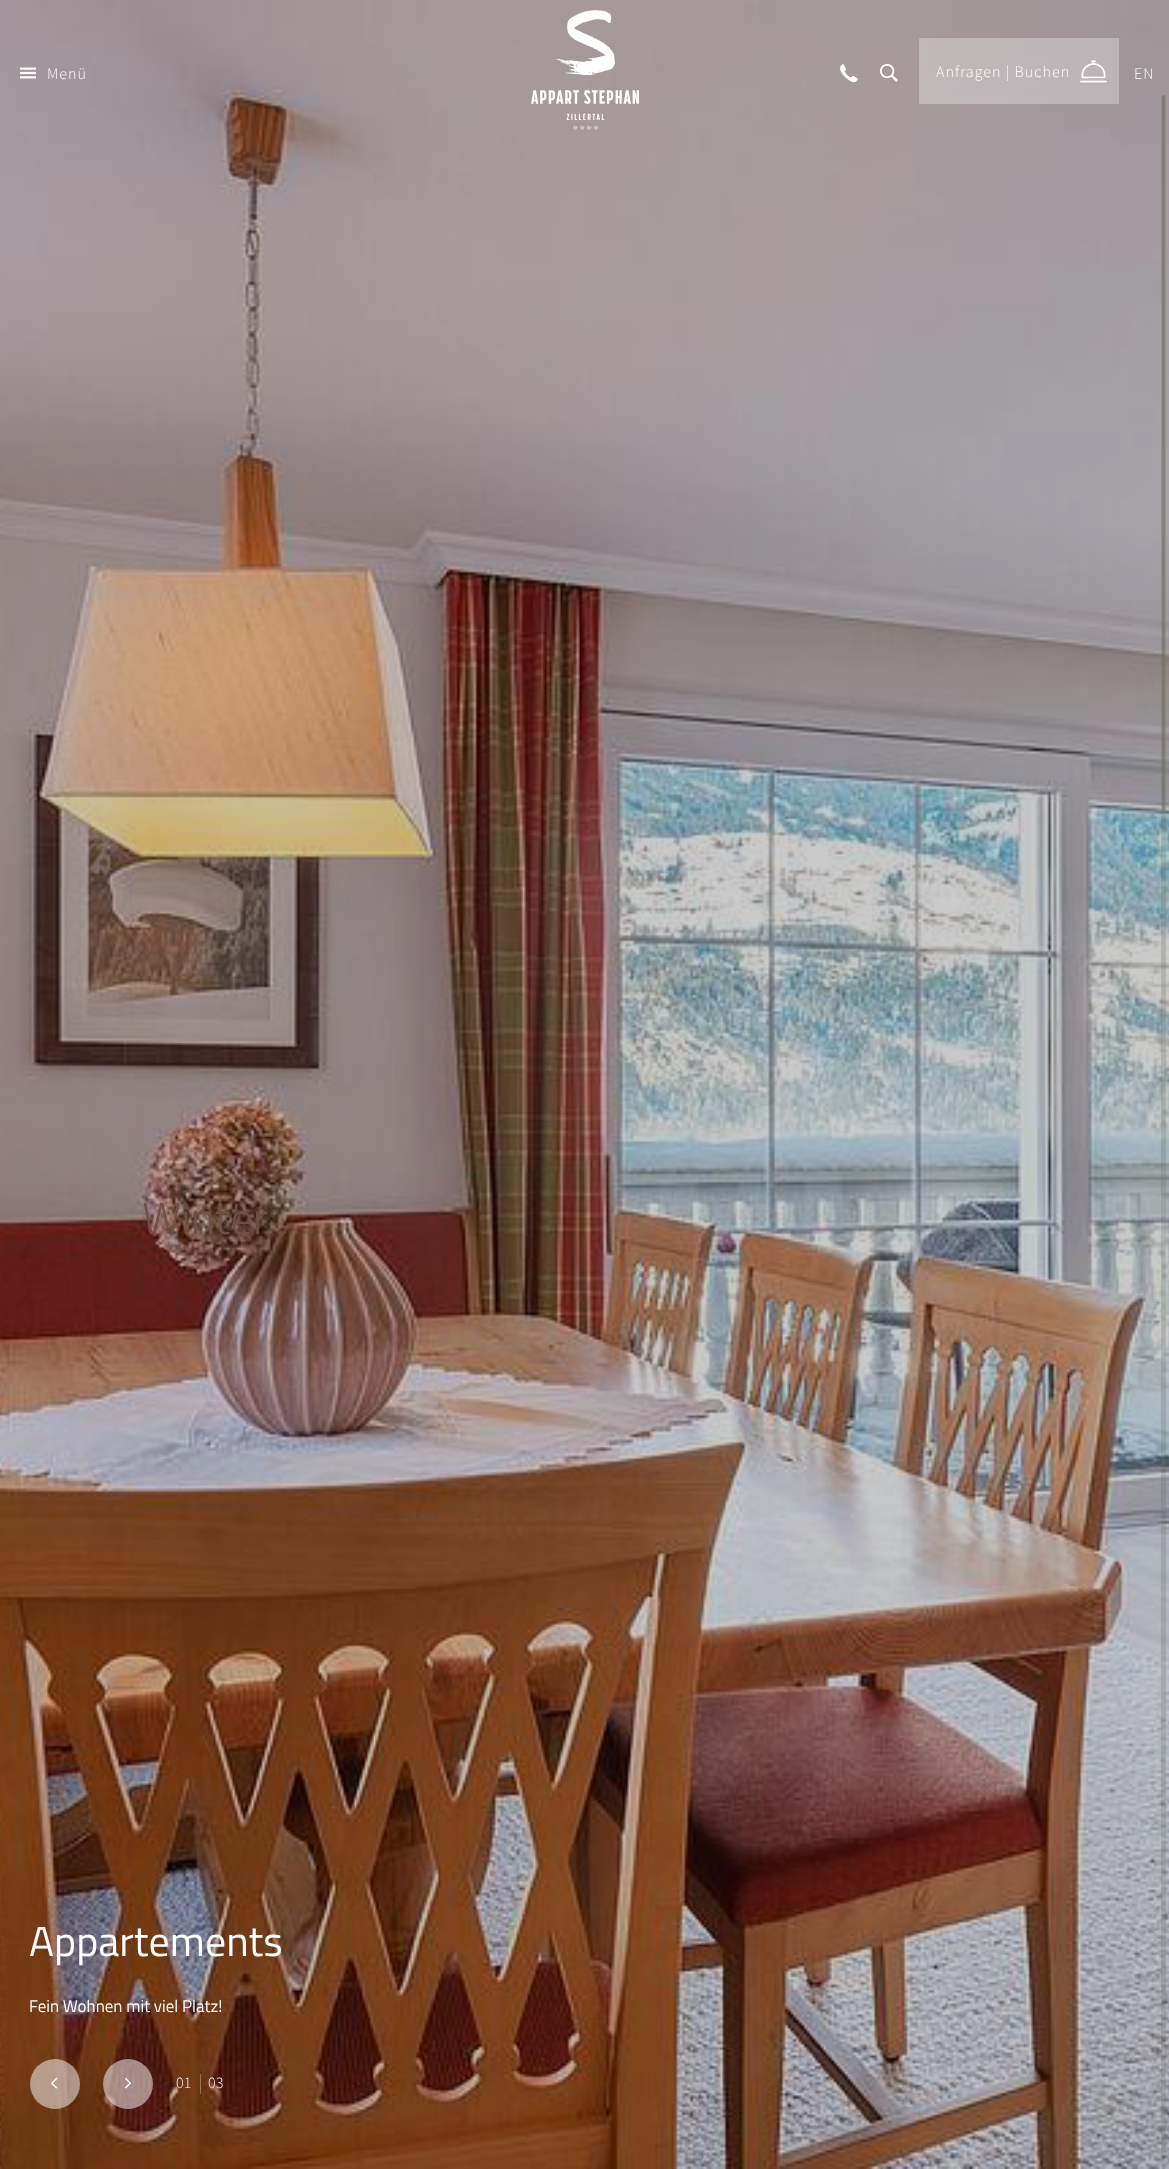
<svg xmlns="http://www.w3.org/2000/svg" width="1169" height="2169">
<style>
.a{font:300 16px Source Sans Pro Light;letter-spacing:1px;fill:#fff}
.b{font:300 45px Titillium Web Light;fill:#705045}
.c{font:42px Titillium Web;fill:#fff}
.d{font:17px Titillium Web;fill:#fff}
.e{font:300 16px Source Sans Pro Light;fill:#fff}
</style>
<rect width="100%" height="100%" fill="#fff"/>
<image href="6.png" x="0" y="0" width="1169" height="2169"/>
<image href="1.png" x="20" y="67" width="16" height="12"/>
<image href="2.png" x="531" y="10" width="108" height="120"/>
<image href="3.png" x="840" y="64" width="18" height="19"/>
<image href="4.png" x="880" y="64" width="18" height="18"/>
<path fill="#ffffff4d" d="M919 38h200v66H919z"/>
<image href="5.png" x="1080" y="60" width="27" height="23"/>
<circle fill="#ffffff80" cx="55" cy="2084" r="25"/>
<image href="7.png" x="50" y="2077" width="8" height="12"/>
<circle fill="#ffffff80" cx="128" cy="2084" r="25"/>
<image href="8.png" x="124" y="2077" width="8" height="12"/>
<path fill="#ffffff4d" d="M200 2074h1v20H200z"/>
<rect fill="#6c706040" x="1161" y="95" width="5" height="2064" rx="2.5"/>
<rect fill="#6c706080" x="1162" y="95" width="3" height="716" rx="1.5"/>
<text class="a" x="47" y="79">Menü</text>
<text class="b" x="142" y="1234">Winter</text>
<text class="a" x="936" y="77">Anfragen | Buchen</text>
<text class="a" x="1134" y="79">EN</text>
<text class="c" x="29" y="1956">Appartements</text>
<text class="d" x="29" y="2012">Fein Wohnen mit viel Platz!</text>
<text class="e" x="176" y="2088">01</text>
<text class="e" x="208" y="2088">03</text>
</svg>
